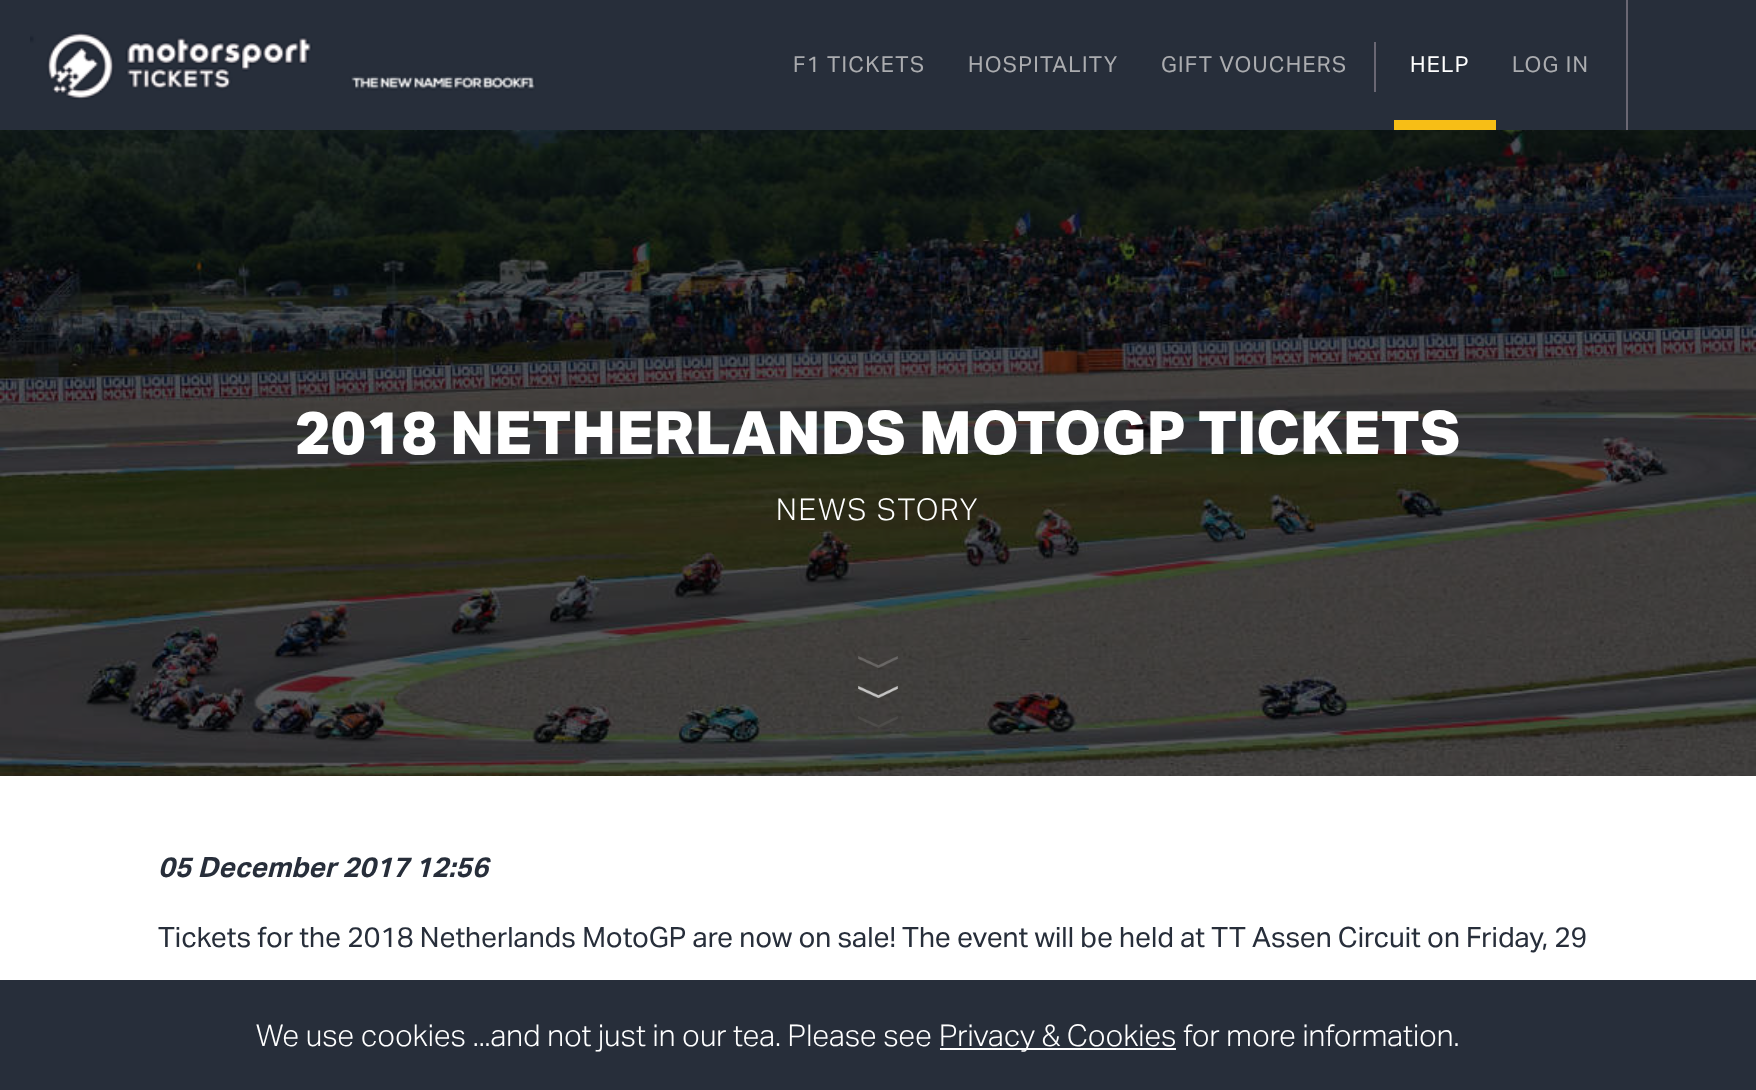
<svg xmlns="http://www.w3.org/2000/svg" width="1756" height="1090">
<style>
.a{font:22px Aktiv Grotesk;letter-spacing:1.25px;fill:#abacaf}
.b{font:22px Aktiv Grotesk;letter-spacing:1.25px;fill:#fff}
.c{font:800 60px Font;fill:#fff}
.d{font:300 30px Aktiv Grotesk;letter-spacing:1.75px;fill:#fff}
.e{font:italic bold 28px Aktiv Grotesk;fill:#272e3a}
.f{font:28px Aktiv Grotesk;fill:#272e3a}
.g{font:300 30px Aktiv Grotesk;fill:#fff}
</style>
<defs>
<linearGradient id="g1" gradientUnits="userSpaceOnUse" x1="30" y1="65" x2="820" y2="65"><stop offset="0" stop-color="#272e3a"/><stop offset="1" stop-color="#272e3a" stop-opacity="0"/></linearGradient>
</defs>
<rect width="100%" height="100%" fill="#fff"/>
<path fill="#272e3a" d="M0 0h1756v130H0z"/>
<image href="1.png" x="30" y="31" width="506" height="69"/>
<path fill="#6a6773" d="M1374 42h2v50H1374z"/>
<path fill="#f7be16" d="M1394 120h102v10H1394z"/>
<path fill="#6a6773" d="M1626 0h2v130H1626z"/>
<image href="2.png" x="0" y="130" width="1756" height="646"/>
<image href="3.png" x="858" y="686" width="40" height="12"/>
<image href="4.png" x="858" y="656" width="40" height="12"/>
<image href="5.png" x="858" y="716" width="40" height="12"/>
<path fill="#272e3a" d="M0 980h1756v110H0z"/>
<path fill="#fff" d="M940 1048h236v2H940z"/>
<text class="a" x="793" y="72">F1 TICKETS</text>
<path fill="url(#g1)" d="M795 56h8v16H795z"/>
<text class="a" x="968" y="72">HOSPITALITY</text>
<text class="a" x="1161" y="72">GIFT VOUCHERS</text>
<text class="b" x="1410" y="72">HELP</text>
<text class="a" x="1512" y="72">LOG IN</text>
<text class="c" x="295" y="454">2018 NETHERLANDS MOTOGP TICKETS</text>
<text class="d" x="776" y="520">NEWS STORY</text>
<text class="e" x="158" y="877">05 December 2017 12:56</text>
<text class="f" x="158" y="947">Tickets for the 2018 Netherlands MotoGP are now on sale! The event will be held at TT Assen Circuit on Friday, 29</text>
<text class="g" x="256" y="1046">We use cookies ...and not just in our tea. Please see</text>
<text class="g" x="939" y="1046">Privacy &amp; Cookies for more information.</text>
</svg>
